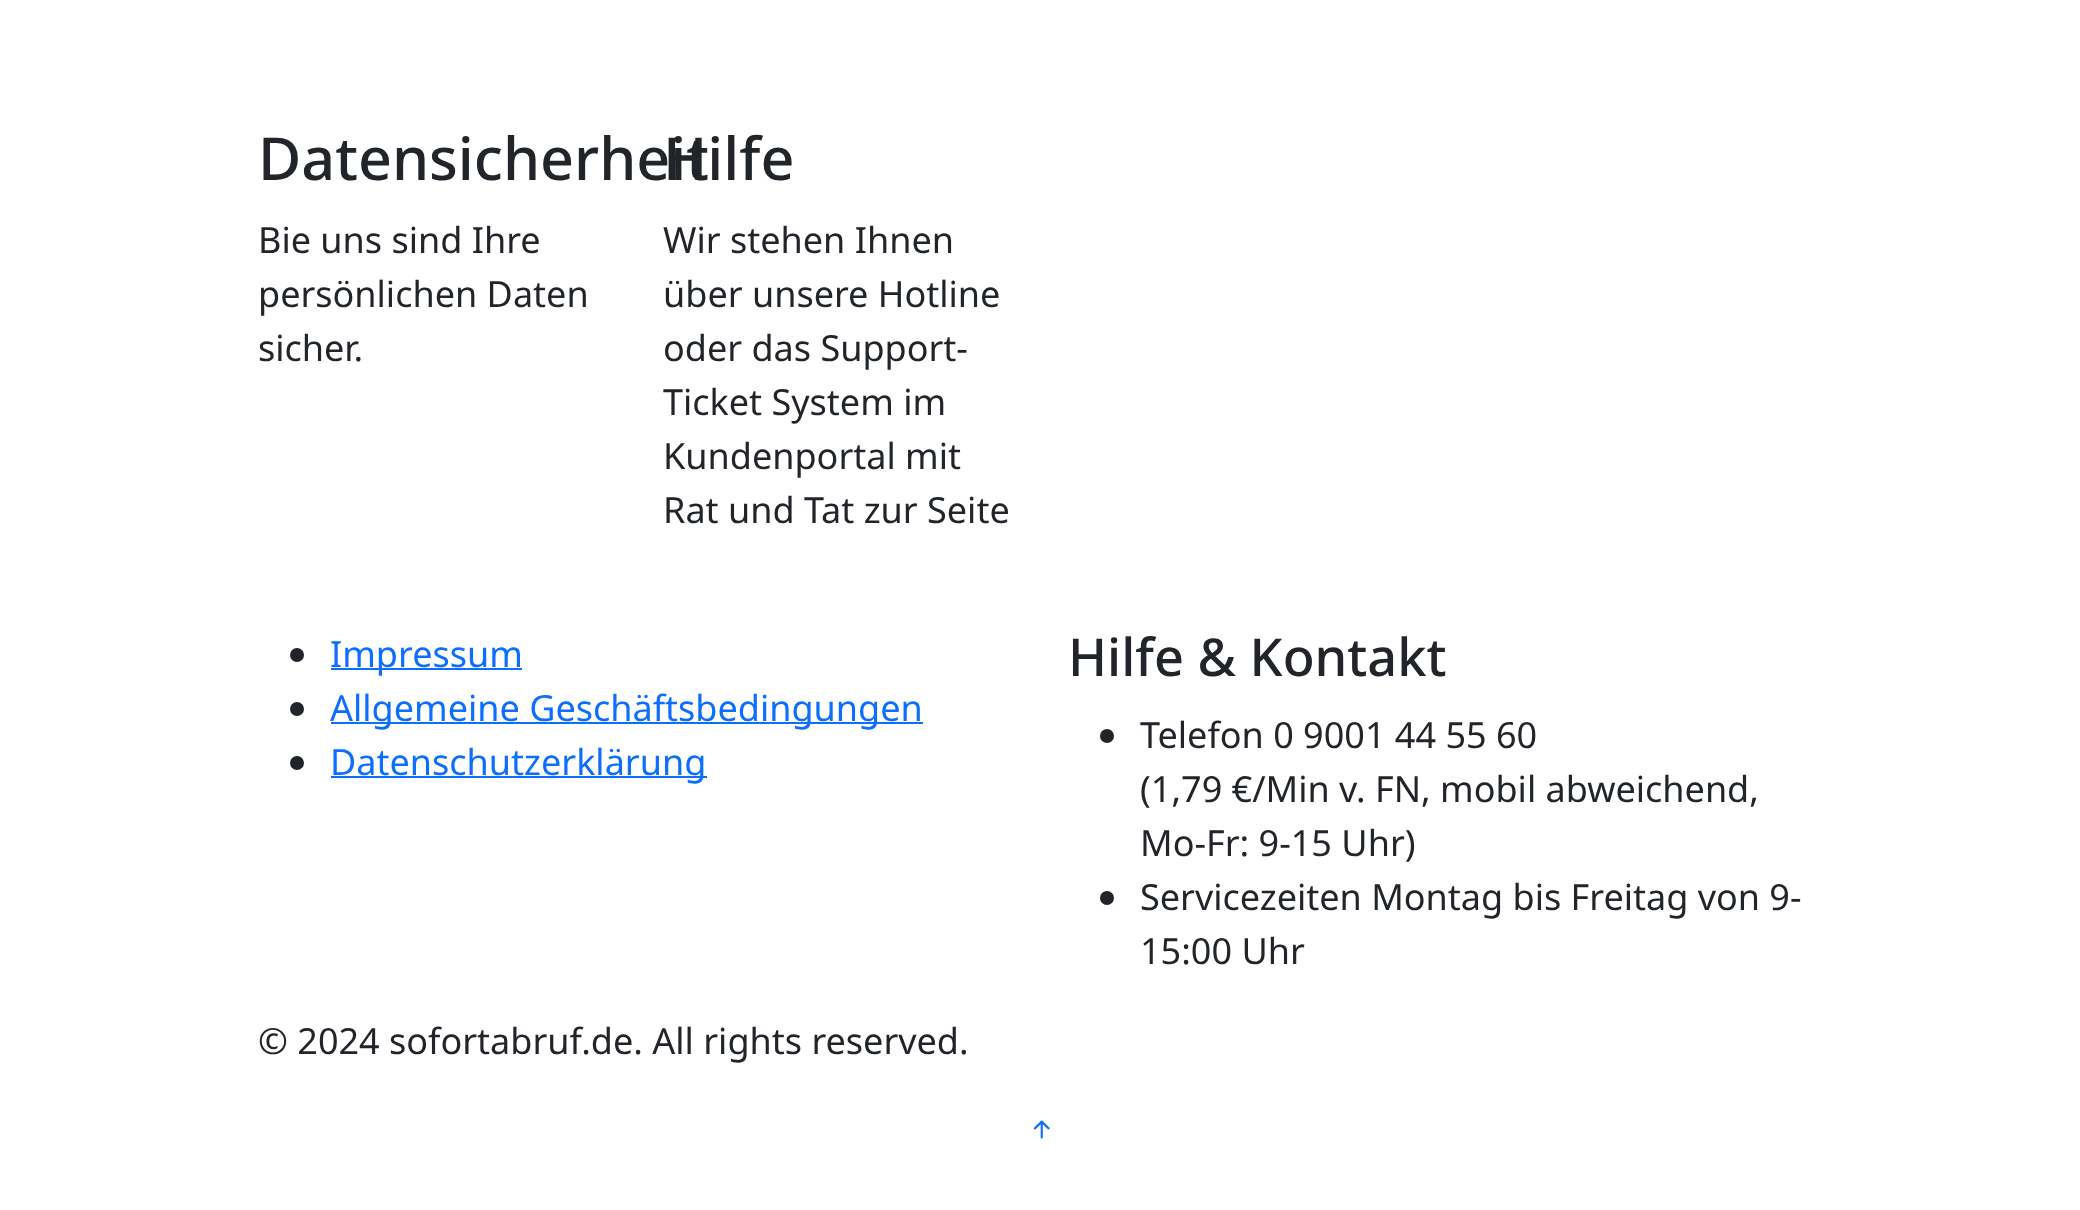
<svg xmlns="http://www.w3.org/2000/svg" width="2080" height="1210">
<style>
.a{font:500 59.25px Noto Sans;fill:#212529}
.b{font:36px Noto Sans;fill:#212529}
.c{font:36px Noto Sans;fill:#0d6efd}
.d{font:500 52.25px Noto Sans;fill:#212529}
</style>
<rect width="100%" height="100%" fill="#fff"/>
<circle fill="#212529" cx="297" cy="655" r="7"/>
<path fill="#0d6efd" d="M331 668h191v2H331z"/>
<circle fill="#212529" cx="297" cy="709" r="7"/>
<path fill="#0d6efd" d="M331 722h592v2H331z"/>
<circle fill="#212529" cx="297" cy="763" r="7"/>
<path fill="#0d6efd" d="M331 776h376v2H331z"/>
<circle fill="#212529" cx="1107" cy="736" r="7"/>
<circle fill="#212529" cx="1107" cy="898" r="7"/>
<image href="1.png" x="1033" y="1120" width="17" height="19"/>
<text class="a" x="258" y="180">Datensicherheit</text>
<text class="b" x="258" y="253">Bie uns sind Ihre</text>
<text class="b" x="258" y="307">persönlichen Daten</text>
<text class="b" x="258" y="361">sicher.</text>
<text class="a" x="663" y="180">Hilfe</text>
<text class="b" x="663" y="253">Wir stehen Ihnen</text>
<text class="b" x="663" y="307">über unsere Hotline</text>
<text class="b" x="663" y="361">oder das Support-</text>
<text class="b" x="663" y="415">Ticket System im</text>
<text class="b" x="663" y="469">Kundenportal mit</text>
<text class="b" x="663" y="523">Rat und Tat zur Seite</text>
<text class="c" x="330" y="667">Impressum</text>
<text class="c" x="330" y="721">Allgemeine Geschäftsbedingungen</text>
<text class="c" x="330" y="775">Datenschutzerklärung</text>
<text class="d" x="1068" y="676">Hilfe &amp; Kontakt</text>
<text class="b" x="1140" y="748">Telefon 0 9001 44 55 60</text>
<text class="b" x="1140" y="802">(1,79 €/Min v. FN, mobil abweichend,</text>
<text class="b" x="1140" y="856">Mo-Fr: 9-15 Uhr)</text>
<text class="b" x="1140" y="910">Servicezeiten Montag bis Freitag von 9-</text>
<text class="b" x="1140" y="964">15:00 Uhr</text>
<text class="b" x="258" y="1054">© 2024 sofortabruf.de. All rights reserved.</text>
</svg>
